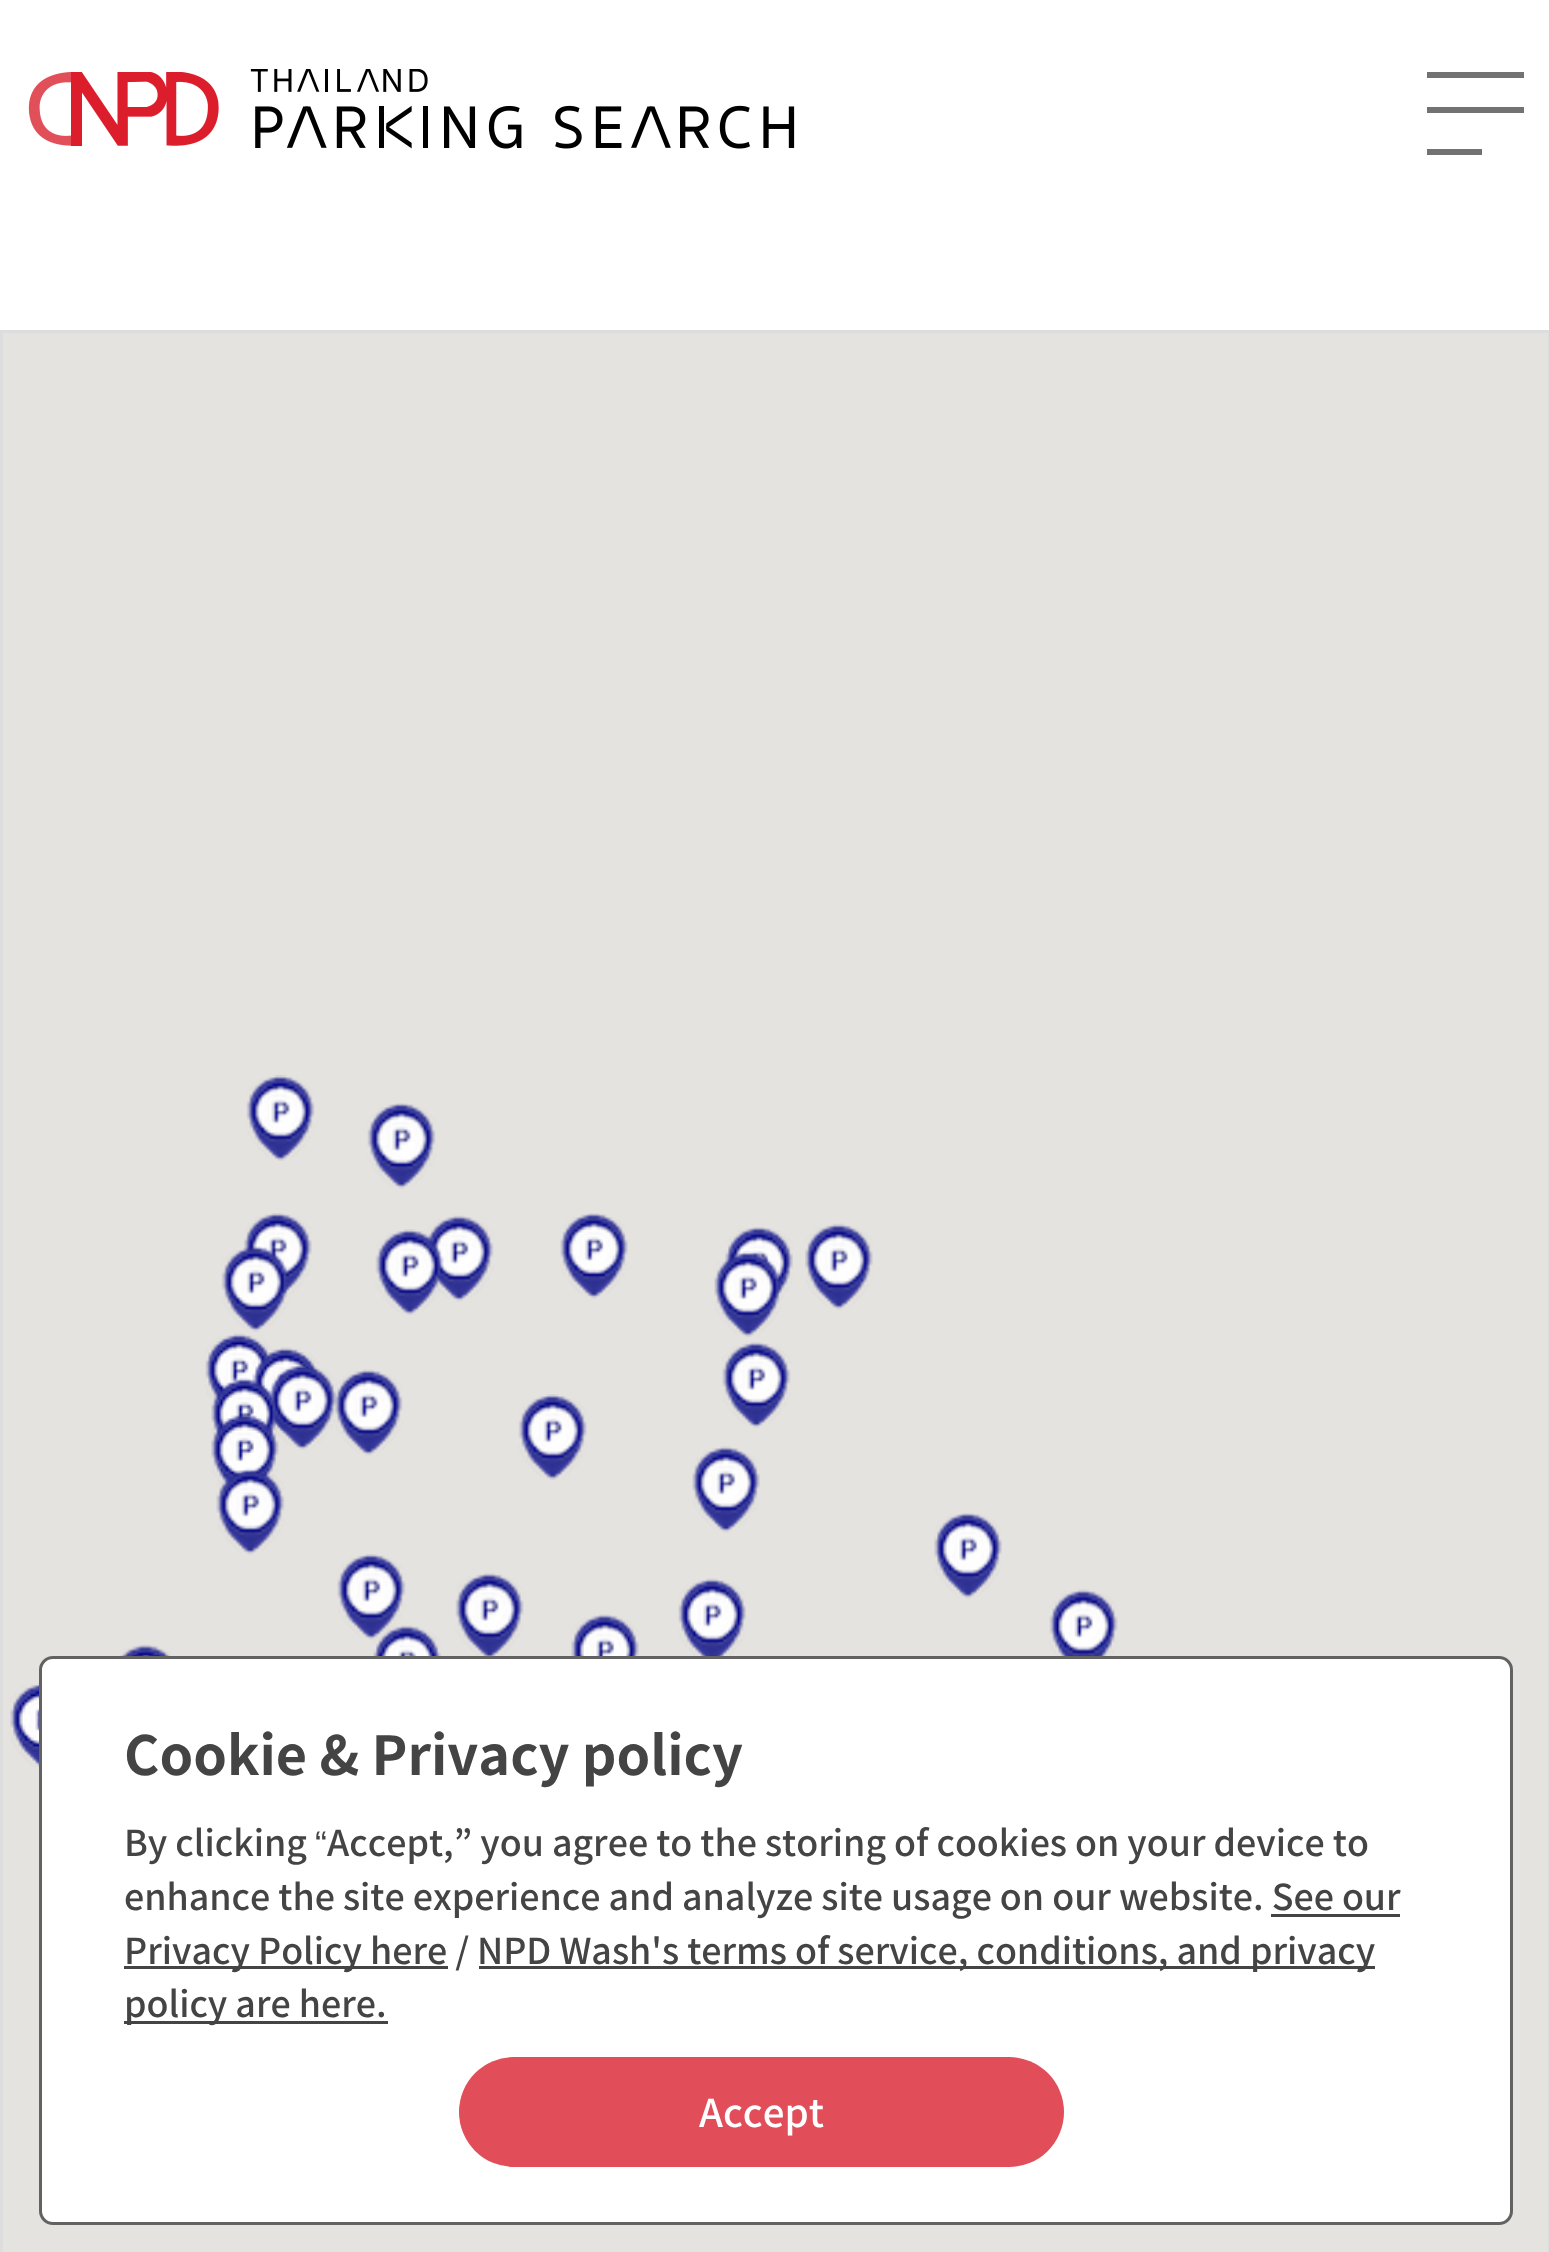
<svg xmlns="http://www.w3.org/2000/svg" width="1549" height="2252">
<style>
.a{font:bold 53.9px Noto Sans CJK JP;fill:#444}
.b{font:500 35.75px Noto Sans CJK JP;fill:#444}
.c{font:35.75px Liberation Sans;fill:#444}
.d{font:500 38.5px Noto Sans CJK JP;fill:#fff}
</style>
<rect width="100%" height="100%" fill="#fff"/>
<image href="1.png" x="28" y="72" width="191" height="74"/>
<image href="2.png" x="250" y="69" width="545" height="80"/>
<path fill="#727272" d="M1427 72h97v6H1427z"/>
<path fill="#727272" d="M1427 107h97v6H1427z"/>
<path fill="#727272" d="M1427 149h55v6H1427z"/>
<path fill="none" stroke="#ddd" stroke-width="3" d="M1.5 331.5h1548v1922H1.5z"/>
<path fill="#e5e3df" d="M3 333h1545v1919H3z"/>
<image href="3.png" x="246" y="1075" width="69" height="86"/>
<image href="4.png" x="367" y="1103" width="69" height="86"/>
<image href="5.png" x="244" y="1213" width="68" height="86"/>
<image href="7.png" x="425" y="1215" width="69" height="87"/>
<image href="6.png" x="375" y="1229" width="69" height="86"/>
<image href="8.png" x="560" y="1213" width="68" height="86"/>
<image href="9.png" x="725" y="1227" width="68" height="85"/>
<image href="10.png" x="805" y="1223" width="68" height="87"/>
<image href="11.png" x="221" y="1246" width="68" height="86"/>
<image href="12.png" x="714" y="1251" width="68" height="86"/>
<image href="13.png" x="205" y="1333" width="68" height="74"/>
<image href="14.png" x="252" y="1347" width="68" height="87"/>
<image href="15.png" x="722" y="1342" width="69" height="86"/>
<image href="17.png" x="268" y="1364" width="69" height="86"/>
<image href="16.png" x="211" y="1377" width="66" height="68"/>
<image href="18.png" x="334" y="1369" width="69" height="87"/>
<image href="19.png" x="518" y="1394" width="69" height="86"/>
<image href="20.png" x="211" y="1413" width="68" height="76"/>
<image href="21.png" x="692" y="1446" width="68" height="87"/>
<image href="22.png" x="120" y="1644" width="51" height="12"/>
<image href="23.png" x="216" y="1468" width="69" height="87"/>
<image href="24.png" x="337" y="1554" width="69" height="86"/>
<image href="25.png" x="373" y="1625" width="68" height="31"/>
<image href="26.png" x="455" y="1573" width="69" height="83"/>
<image href="27.png" x="571" y="1614" width="68" height="42"/>
<image href="28.png" x="678" y="1578" width="68" height="78"/>
<image href="29.png" x="934" y="1513" width="68" height="86"/>
<image href="30.png" x="1049" y="1589" width="69" height="67"/>
<image href="31.png" x="10" y="1683" width="29" height="84"/>
<rect fill="#fff" stroke="#626262" stroke-width="3" x="40.5" y="1657.5" width="1471" height="566" rx="12.5"/>
<path fill="#444" d="M1271 1914h129v3H1271z"/>
<path fill="#444" d="M124 1966h324v3H124z"/>
<path fill="#444" d="M479 1966h896v3H479z"/>
<path fill="#444" d="M124 2021h264v3H124z"/>
<rect fill="#e14e59" x="459" y="2057" width="605" height="110" rx="55"/>
<text class="a" x="124" y="1775">Cookie &amp; Privacy policy</text>
<text class="b" x="124" y="1856">By clicking</text>
<text class="c" x="315" y="1856">“</text>
<text class="b" x="327" y="1856">Accept,” you agree to the storing of cookies on your device to</text>
<text class="b" x="124" y="1910">enhance the site experience and analyze site usage on our website. See our</text>
<text class="b" x="124" y="1964">Privacy Policy here /</text>
<text class="b" x="477" y="1964">NPD Wash's terms of service, conditions, and privacy</text>
<text class="b" x="124" y="2017">policy are here.</text>
<text class="d" x="699" y="2127">Accept</text>
</svg>
